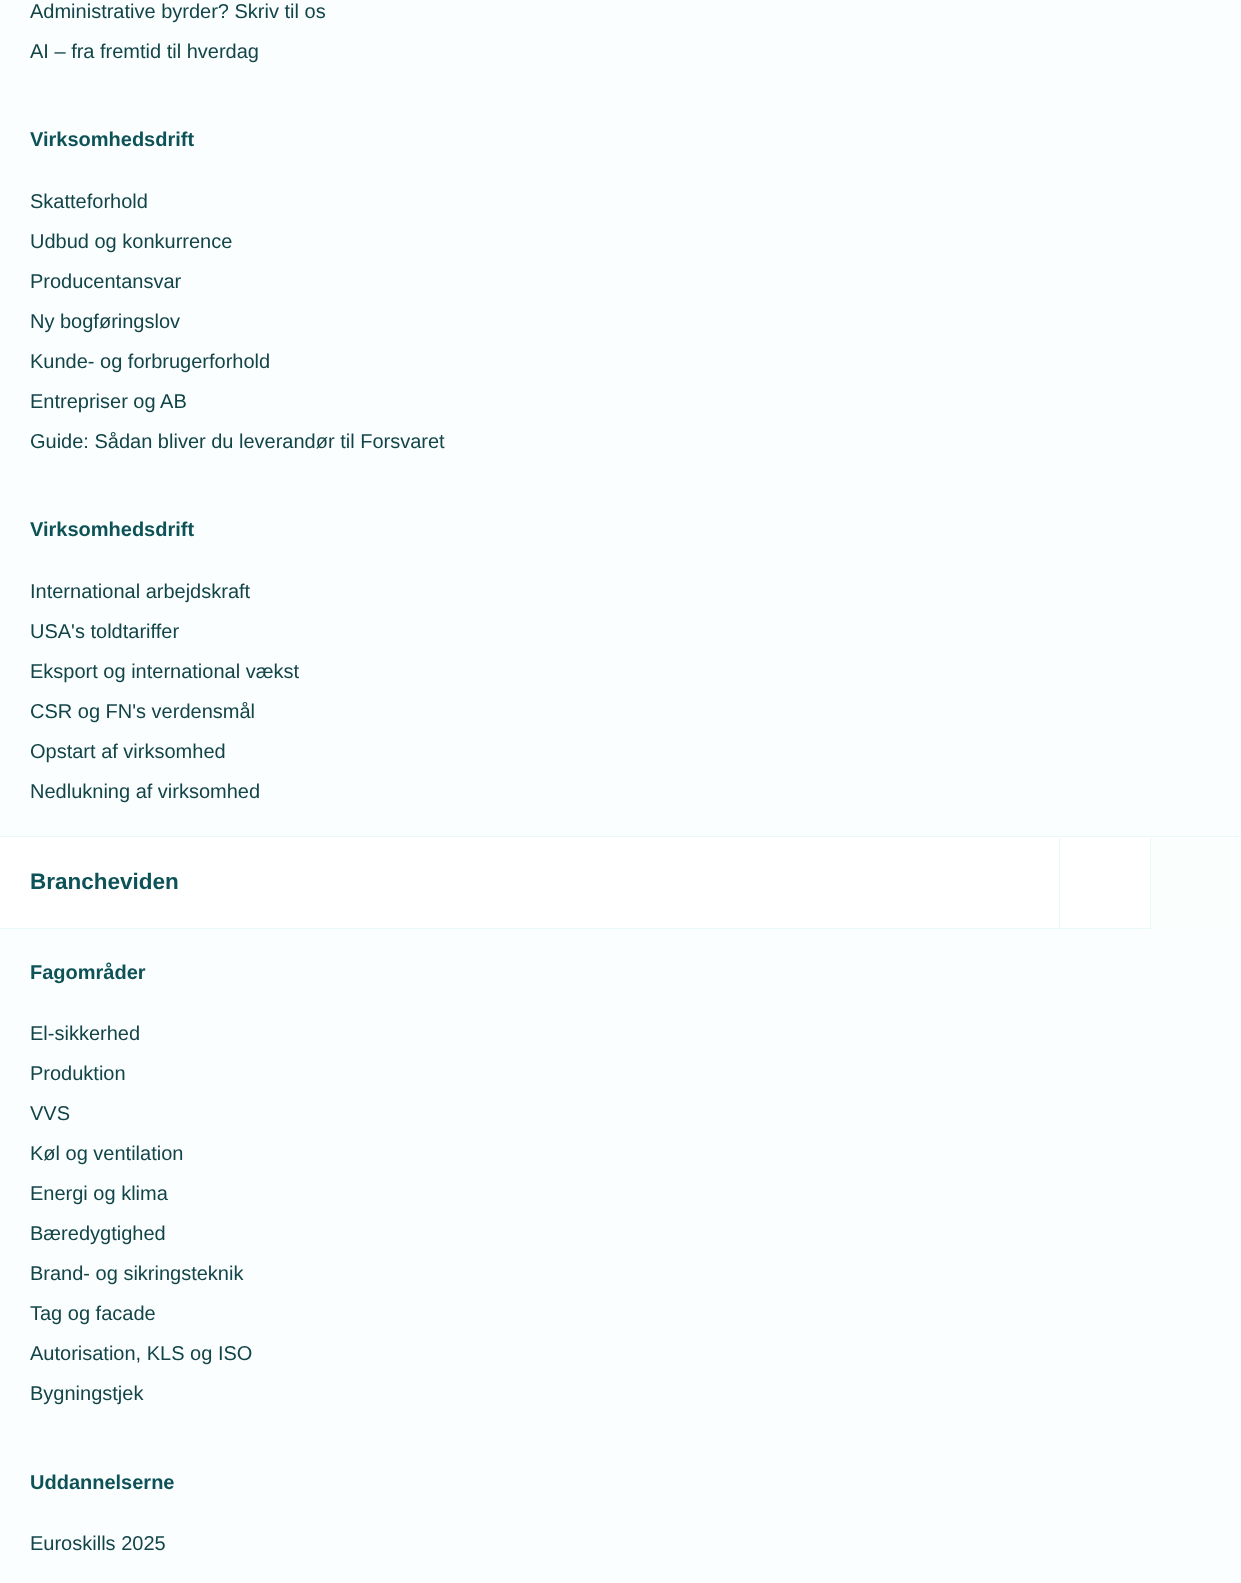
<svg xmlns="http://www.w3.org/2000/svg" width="1241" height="1583">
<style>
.a{font:20px Liberation Sans;fill:#124448}
.b{font:bold 20px Liberation Sans;fill:#0d5257}
.c{font:bold 22.5px Liberation Sans;fill:#0d5257}
</style>
<rect width="100%" height="100%" fill="#fff"/>
<path fill="#fafefe" d="M0 0h1241v836H0z"/>
<path fill="#eaf9f7" d="M0 836h1241v1H0z"/>
<path fill="#eaf9f7" d="M0 928h1150v1H0z"/>
<path fill="#eaf9f7" d="M1059 838h1v91H1059z"/>
<path fill="#fafefd" d="M1151 838h90v91H1151z"/>
<path fill="#eaf9f7" d="M1150 838h1v91H1150z"/>
<path fill="#fafefe" d="M0 929h1241v654H0z"/>
<text class="a" x="30" y="18">Administrative byrder? Skriv til os</text>
<text class="a" x="30" y="58">AI – fra fremtid til hverdag</text>
<text class="b" x="30" y="146">Virksomhedsdrift</text>
<text class="a" x="30" y="208">Skatteforhold</text>
<text class="a" x="30" y="248">Udbud og konkurrence</text>
<text class="a" x="30" y="288">Producentansvar</text>
<text class="a" x="30" y="328">Ny bogføringslov</text>
<text class="a" x="30" y="368">Kunde- og forbrugerforhold</text>
<text class="a" x="30" y="408">Entrepriser og AB</text>
<text class="a" x="30" y="448">Guide: Sådan bliver du leverandør til Forsvaret</text>
<text class="b" x="30" y="536">Virksomhedsdrift</text>
<text class="a" x="30" y="598">International arbejdskraft</text>
<text class="a" x="30" y="638">USA's toldtariffer</text>
<text class="a" x="30" y="678">Eksport og international vækst</text>
<text class="a" x="30" y="718">CSR og FN's verdensmål</text>
<text class="a" x="30" y="758">Opstart af virksomhed</text>
<text class="a" x="30" y="798">Nedlukning af virksomhed</text>
<text class="c" x="30" y="889">Brancheviden</text>
<text class="b" x="30" y="979">Fagområder</text>
<text class="a" x="30" y="1040">El-sikkerhed</text>
<text class="a" x="30" y="1080">Produktion</text>
<text class="a" x="30" y="1120">VVS</text>
<text class="a" x="30" y="1160">Køl og ventilation</text>
<text class="a" x="30" y="1200">Energi og klima</text>
<text class="a" x="30" y="1240">Bæredygtighed</text>
<text class="a" x="30" y="1280">Brand- og sikringsteknik</text>
<text class="a" x="30" y="1320">Tag og facade</text>
<text class="a" x="30" y="1360">Autorisation, KLS og ISO</text>
<text class="a" x="30" y="1400">Bygningstjek</text>
<text class="b" x="30" y="1489">Uddannelserne</text>
<text class="a" x="30" y="1550">Euroskills 2025</text>
</svg>
